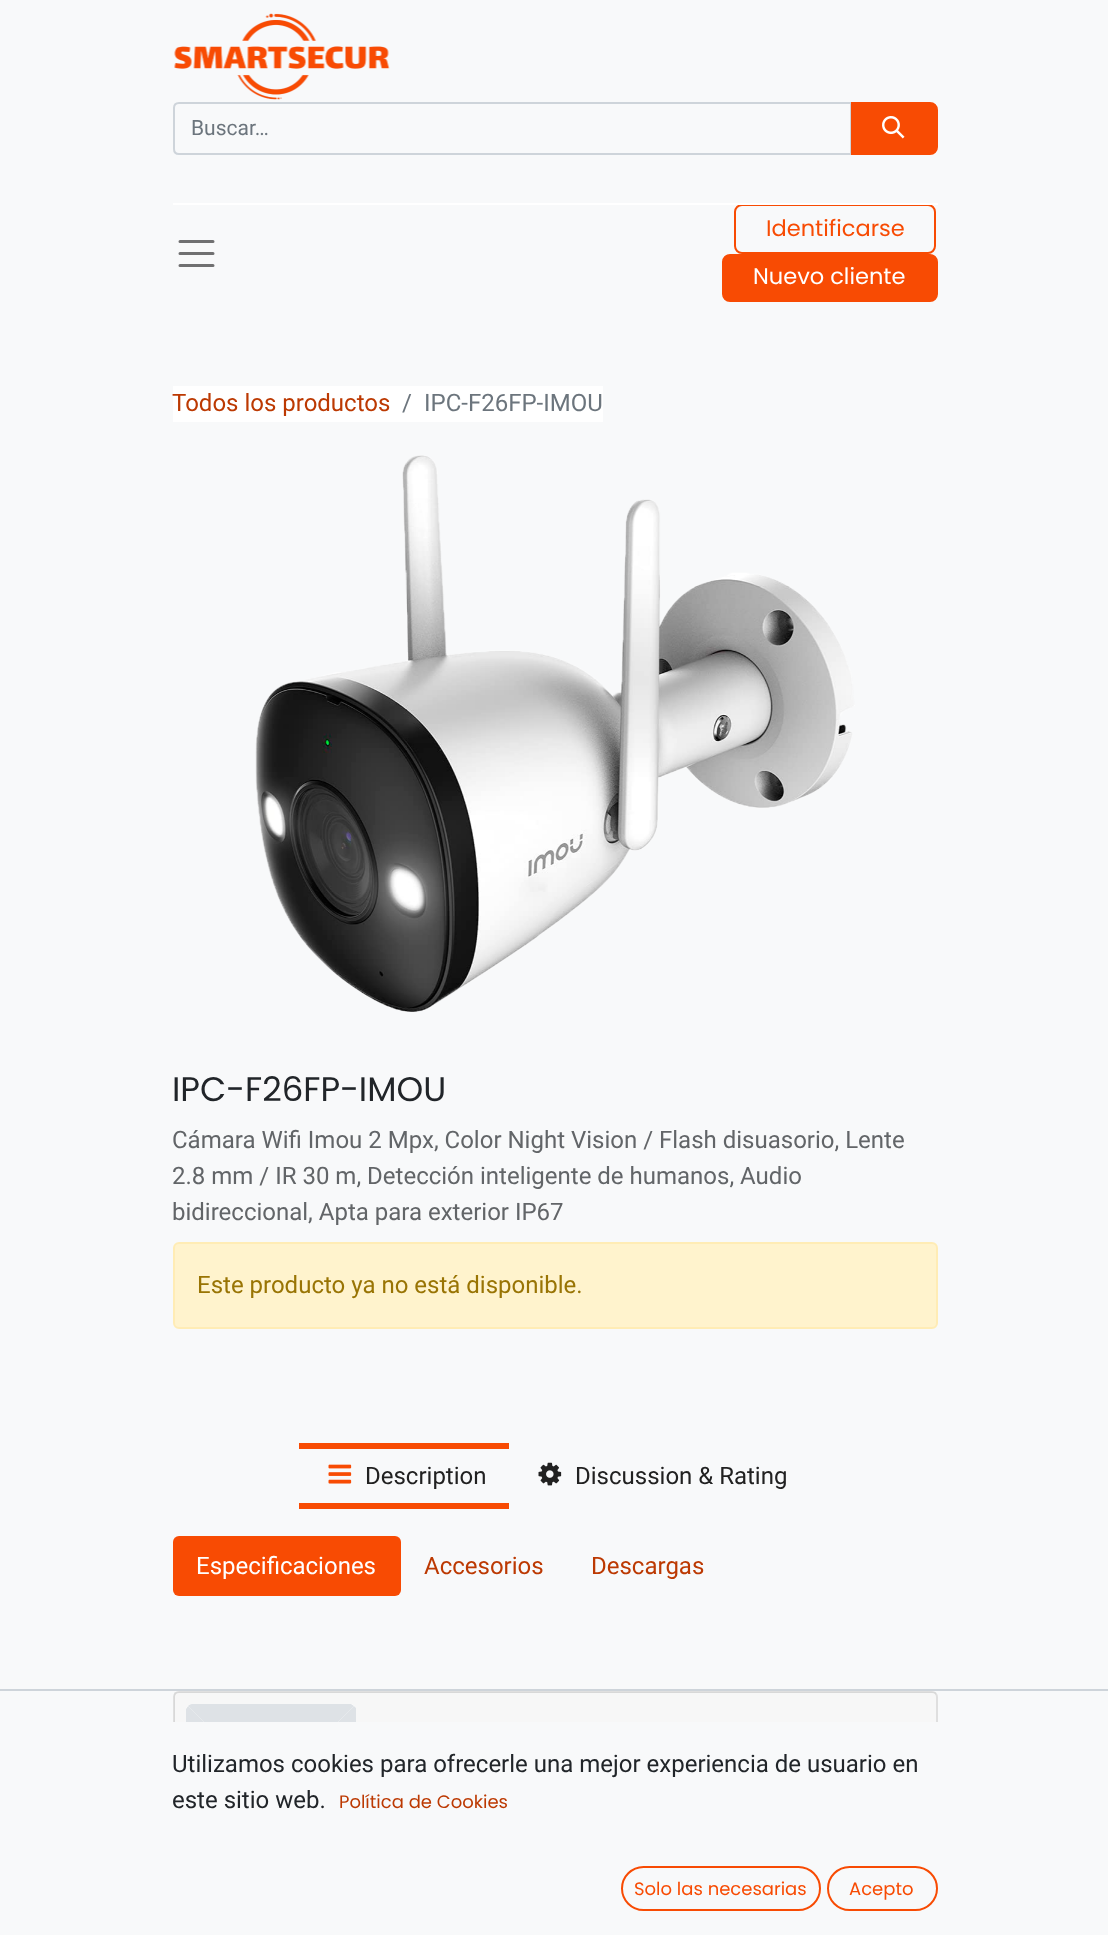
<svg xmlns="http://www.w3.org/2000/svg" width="1108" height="1935">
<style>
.a{font:21px Roboto;fill:#6c757d}
.b{font:22.5px Poppins;fill:#f84b03}
.c{font:22.5px Poppins;fill:#fff}
.d{font:24px Roboto;fill:#bc3902}
.e{font:24px Roboto;fill:#6c757d}
.f{font:34px Poppins;fill:#212529}
.g{font:24px Roboto;fill:#626568}
.h{font:24px Roboto;fill:#997404}
.i{font:24px Roboto;fill:#212121}
.j{font:24px Roboto;fill:#fff}
.k{font:24px Roboto;fill:#212529}
.l{font:18px Poppins;fill:#bc3902}
.m{font:18px Poppins;fill:#f84b03}
</style>
<rect width="100%" height="100%" fill="#f8f9fa"/>
<image href="1.png" x="174" y="13" width="216" height="87"/>
<path fill="none" stroke="#ced4da" stroke-width="2" d="M179 103h672v51h-672c-3 0-5-2-5-5v-41c0-3 2-5 5-5z"/>
<path fill="#f84b03" stroke="#f84b03" stroke-width="2" d="M852 103h78c4 0 7 3 7 7v37c0 4-3 7-7 7h-78z"/>
<image href="2.png" x="882" y="116" width="23" height="23"/>
<rect fill="none" stroke="#f84b03" stroke-width="2" x="735" y="205" width="200" height="48" rx="7"/>
<path fill="#fff" d="M173 203h765v2H173z"/>
<path fill="none" stroke="#707071" stroke-width="3" stroke-linecap="round" d="M180 241.5h33m-33 12h33m-33 12h33"/>
<rect fill="#f84b03" stroke="#f84b03" stroke-width="2" x="723" y="255" width="214" height="46" rx="7"/>
<path fill="#fff" d="M173 386h430v36H173z"/>
<image href="3.png" x="255" y="455" width="600" height="557"/>
<rect fill="#fff3cd" stroke="#ffecb5" stroke-width="2" x="174" y="1243" width="763" height="85" rx="5"/>
<path fill="#f84b03" d="M299 1443h210v6H299z"/>
<image href="4.png" x="328" y="1464" width="24" height="20"/>
<path fill="#f84b03" d="M299 1503h210v6H299z"/>
<image href="5.png" x="538" y="1462" width="24" height="24"/>
<path fill="#ced4da" d="M0 1689h1108v2H0z"/>
<rect fill="#fff" stroke="#dfdfdf" stroke-width="2" x="174" y="1692" width="763" height="148" rx="5"/>
<path fill="#00000008" d="M174 1692h762v30H174z"/>
<path fill="#fff" d="M192 1704h158c3.5 0 6 2.5 6 6v81h-170v-81c0-3.5 2.5-6 6-6z"/>
<path fill="#dee2e6" d="M192 1704h159l3 2l-42 42h-82l-42-42c1-1 2-2 4-2z"/>
<path fill="#dee2e6" d="M354 1706l-42 42l44 43v-83z"/>
<path fill="#dee2e6" d="M186 1791v-82l2-3l42 42z"/>
<rect fill="#f84b03" x="173" y="1536" width="228" height="60" rx="6"/>
<path fill="#f8f9fa" d="M173 1722h765v119H173z"/>
<rect fill="none" stroke="#f84b03" stroke-width="2" x="622" y="1867" width="198" height="43" rx="21.5"/>
<rect fill="none" stroke="#f84b03" stroke-width="2" x="828" y="1867" width="109" height="43" rx="21.5"/>
<text class="a" x="191" y="135">Buscar…</text>
<text class="b" x="766" y="236">Identificarse</text>
<text class="c" x="753" y="284">Nuevo cliente</text>
<text class="d" x="172" y="411">Todos los productos</text>
<text class="e" x="402" y="411">/</text>
<text class="e" x="424" y="411">IPC-F26FP-IMOU</text>
<text class="f" x="172" y="1101">IPC-F26FP-IMOU</text>
<text class="g" x="172" y="1148">Cámara Wifi Imou 2 Mpx, Color Night Vision / Flash disuasorio, Lente</text>
<text class="g" x="172" y="1184">2.8 mm / IR 30 m, Detección inteligente de humanos, Audio</text>
<text class="g" x="172" y="1220">bidireccional, Apta para exterior IP67</text>
<text class="h" x="197" y="1293">Este producto ya no está disponible.</text>
<text class="i" x="365" y="1484">Description</text>
<text class="i" x="575" y="1484">Discussion &amp; Rating</text>
<text class="j" x="196" y="1574">Especificaciones</text>
<text class="d" x="424" y="1574">Accesorios</text>
<text class="d" x="591" y="1574">Descargas</text>
<text class="k" x="172" y="1772">Utilizamos cookies para ofrecerle una mejor experiencia de usuario en</text>
<text class="k" x="172" y="1808">este sitio web.</text>
<text class="l" x="339" y="1808">Política de Cookies</text>
<text class="m" x="634" y="1895">Solo las necesarias</text>
<text class="m" x="849" y="1895">Acepto</text>
</svg>
